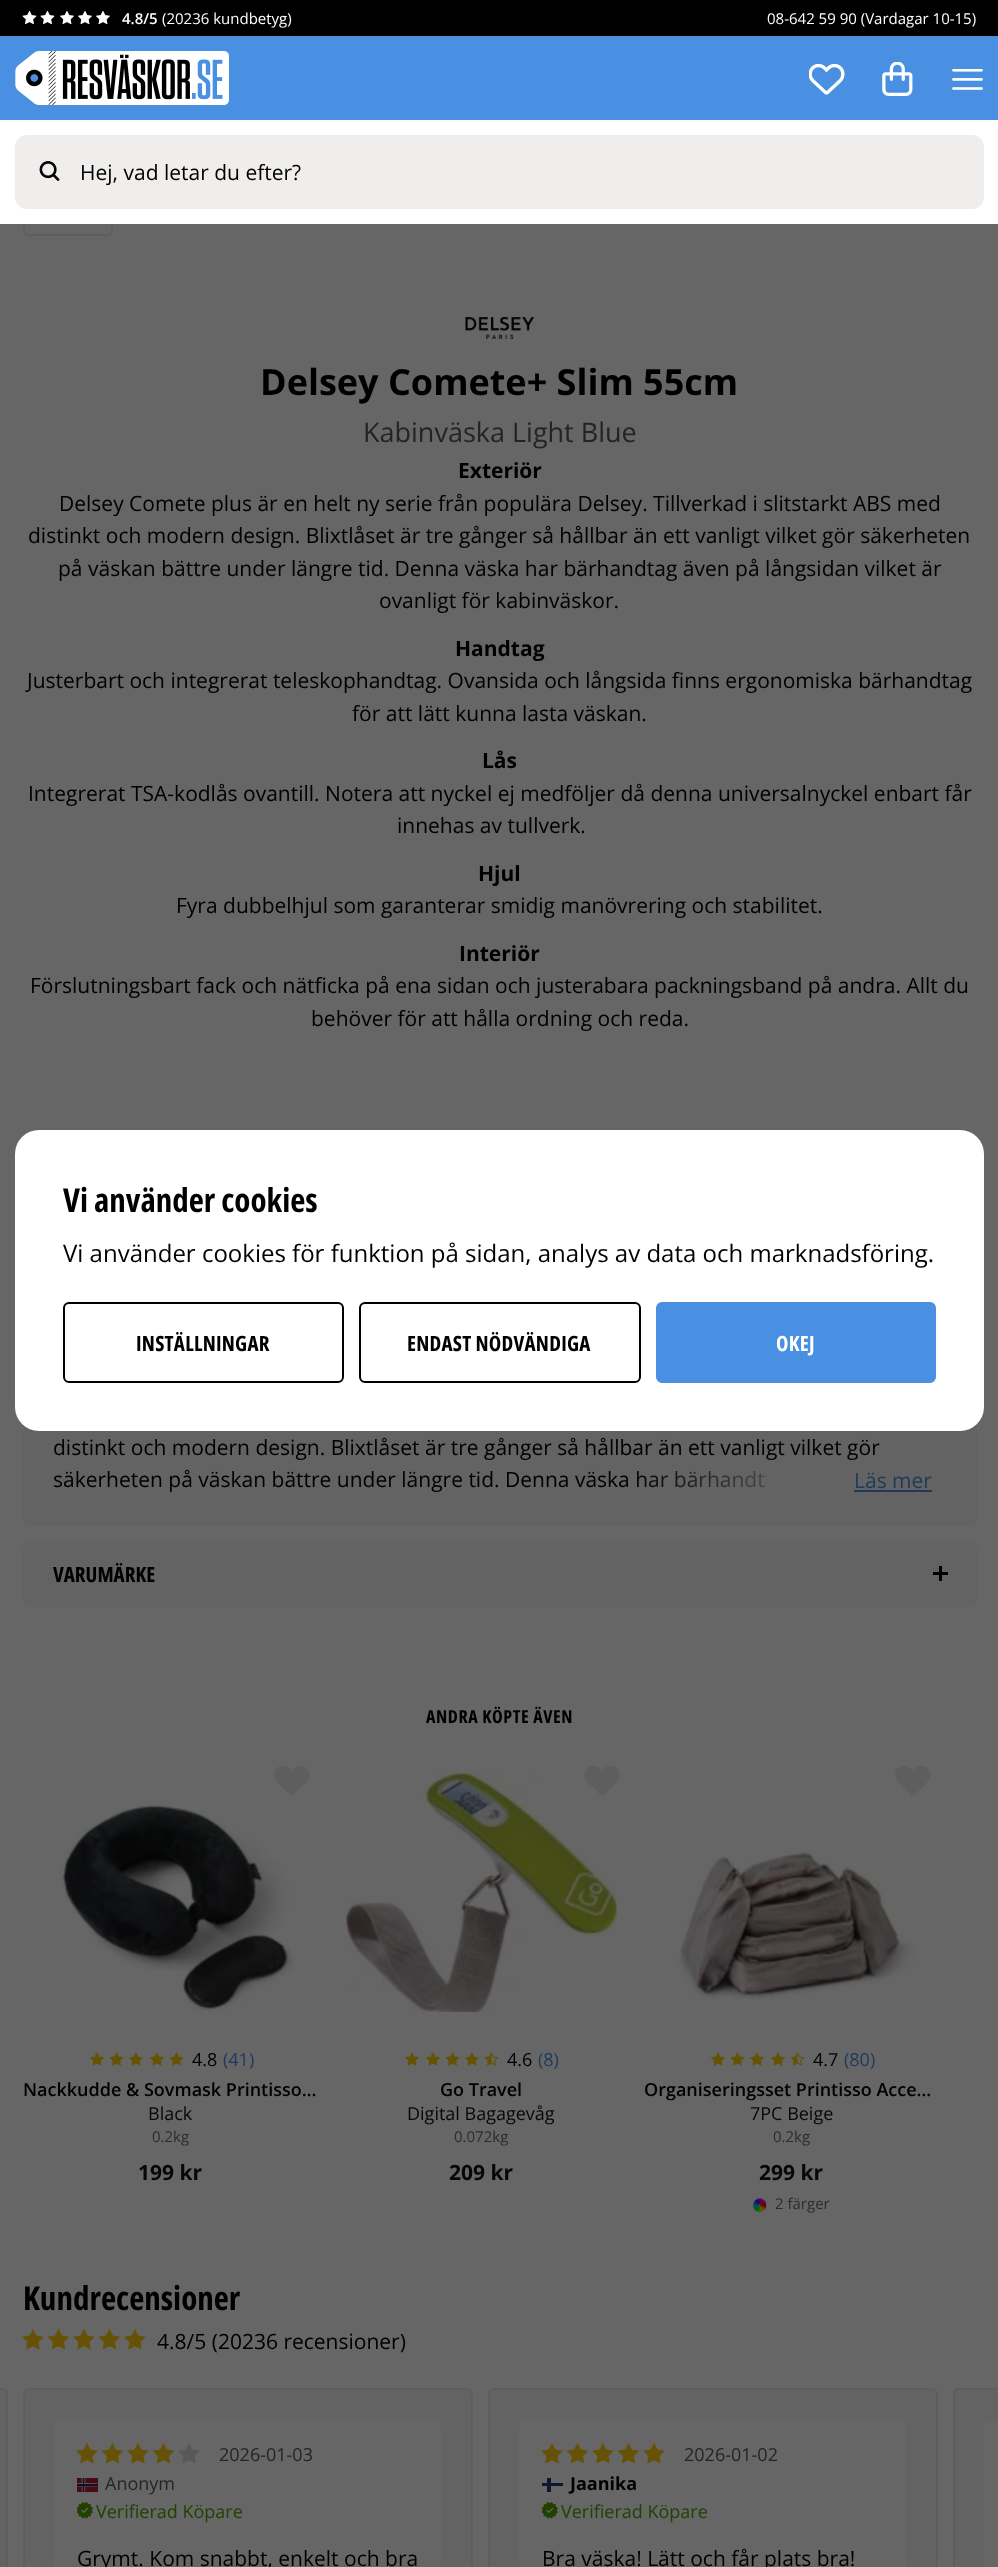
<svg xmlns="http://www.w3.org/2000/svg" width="998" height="2567">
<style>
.a{font:600 15px Open Sans;fill:#fff}
.b{font:15px Open Sans;fill:#fff}
.c{font:21px Open Sans;fill:#000}
.d{font:bold 36px Open Sans;fill:#000}
.e{font:27px Open Sans;fill:#242424}
.f{font:bold 21px Open Sans;fill:#000}
.g{font:21px Open Sans;fill:#1e3a5a}
.h{font:bold 21px Open Sans Condensed;fill:#000}
.i{font:bold 18px Open Sans Condensed;letter-spacing:0.6px;fill:#000}
.j{font:18px Open Sans;fill:#000}
.k{font:18px Open Sans;fill:#1e3a5a}
.l{font:600 18px Open Sans;fill:#000}
.m{font:18px Open Sans;fill:#070707}
.n{font:15px Open Sans;fill:#2c2c2c}
.o{font:bold 21px Open Sans;fill:#070707}
.p{font:bold 33px Open Sans Condensed;fill:#000}
.q{font:18px Open Sans;fill:#242424}
.r{font:18px Open Sans;fill:#224101}
.s{font:bold 18px Open Sans;fill:#000}
.t{font:24px Open Sans;fill:#000}
.u{font:bold 21px Open Sans Condensed;letter-spacing:0.25px;fill:#000}
.v{font:bold 21px Open Sans Condensed;letter-spacing:0.25px;fill:#fff}
</style>
<defs>
<linearGradient id="g1" gradientUnits="userSpaceOnUse" x1="629" y1="1480" x2="947" y2="1480"><stop offset="0" stop-color="#636363" stop-opacity="0"/><stop offset="0.6" stop-color="#636363"/></linearGradient>
</defs>
<rect width="100%" height="100%" fill="#666"/>
<path fill="#000" d="M0 0h998v36H0z"/>
<image href="1.png" x="22" y="10" width="15" height="15"/>
<image href="1.png" x="40" y="10" width="15" height="15"/>
<image href="2.png" x="60" y="10" width="14" height="15"/>
<image href="2.png" x="78" y="10" width="14" height="15"/>
<image href="2.png" x="96" y="10" width="14" height="15"/>
<path fill="#4a90e2" d="M0 36h998v84H0z"/>
<image href="3.png" x="15" y="51" width="214" height="54"/>
<image href="4.png" x="809" y="63" width="36" height="32"/>
<image href="5.png" x="882" y="62" width="31" height="34"/>
<image href="6.png" x="952" y="69" width="31" height="21"/>
<rect fill="none" stroke="#5e5e5e" stroke-width="2" x="24" y="145" width="88" height="90" rx="5"/>
<path fill="#fff" d="M0 120h998v104H0z"/>
<rect fill="#f0eeed" stroke="#f0eeed" stroke-width="2" x="16" y="136" width="967" height="72" rx="11"/>
<image href="7.png" x="39" y="161" width="21" height="20"/>
<image href="8.png" x="465" y="316" width="69" height="24"/>
<rect fill="#636363" x="23" y="1299" width="954" height="227" rx="6"/>
<path fill="#1e3a5a" d="M854 1490h78v2H854z"/>
<rect fill="#636363" x="23" y="1541" width="954" height="66" rx="6"/>
<path fill="#000" d="M939 1566h3v15H939z"/>
<path fill="#000" d="M933 1572h15v3H933z"/>
<image href="9.png" x="274" y="1765" width="36" height="31"/>
<image href="10.png" x="60" y="1801" width="234" height="210"/>
<image href="11.png" x="90" y="2052" width="14" height="14"/>
<image href="12.png" x="109" y="2052" width="15" height="14"/>
<image href="11.png" x="129" y="2052" width="14" height="14"/>
<image href="11.png" x="150" y="2052" width="14" height="14"/>
<image href="12.png" x="169" y="2052" width="15" height="14"/>
<image href="14.png" x="346" y="1773" width="271" height="239"/>
<image href="13.png" x="584" y="1765" width="36" height="31"/>
<image href="11.png" x="405" y="2052" width="14" height="14"/>
<image href="11.png" x="426" y="2052" width="14" height="14"/>
<image href="12.png" x="445" y="2052" width="15" height="14"/>
<image href="11.png" x="465" y="2052" width="14" height="14"/>
<image href="15.png" x="484" y="2052" width="15" height="14"/>
<image href="16.png" x="895" y="1765" width="36" height="31"/>
<image href="17.png" x="677" y="1851" width="241" height="149"/>
<image href="11.png" x="711" y="2052" width="14" height="14"/>
<image href="12.png" x="730" y="2052" width="15" height="14"/>
<image href="11.png" x="750" y="2052" width="14" height="14"/>
<image href="11.png" x="771" y="2052" width="14" height="14"/>
<image href="15.png" x="790" y="2052" width="15" height="14"/>
<image href="18.png" x="753" y="2198" width="14" height="15"/>
<image href="19.png" x="22" y="2329" width="22" height="21"/>
<image href="20.png" x="48" y="2329" width="21" height="21"/>
<image href="19.png" x="73" y="2329" width="22" height="21"/>
<image href="20.png" x="99" y="2329" width="21" height="21"/>
<image href="19.png" x="124" y="2329" width="22" height="21"/>
<path fill="#636363" d="M0 2388h2c3.5 0 6 2.5 6 6v173c0 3.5-2.5 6-6 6h-2z"/>
<rect fill="none" stroke="#5e5e5e" stroke-width="2" x="-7" y="2389" width="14" height="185" rx="5"/>
<rect fill="#636363" stroke="#5e5e5e" stroke-width="2" x="24" y="2389" width="448" height="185" rx="5"/>
<rect fill="#666" x="54" y="2420" width="387" height="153" rx="6"/>
<image href="19.png" x="76" y="2443" width="22" height="21"/>
<image href="20.png" x="102" y="2443" width="21" height="21"/>
<image href="19.png" x="127" y="2443" width="22" height="21"/>
<image href="20.png" x="153" y="2443" width="21" height="21"/>
<image href="21.png" x="178" y="2443" width="22" height="20"/>
<image href="22.png" x="77" y="2478" width="21" height="14"/>
<image href="23.png" x="77" y="2502" width="16" height="17"/>
<rect fill="#636363" stroke="#5e5e5e" stroke-width="2" x="489" y="2389" width="448" height="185" rx="5"/>
<rect fill="#666" x="519" y="2420" width="387" height="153" rx="6"/>
<image href="19.png" x="541" y="2443" width="22" height="21"/>
<image href="20.png" x="567" y="2443" width="21" height="21"/>
<image href="19.png" x="592" y="2443" width="22" height="21"/>
<image href="20.png" x="618" y="2443" width="21" height="21"/>
<image href="19.png" x="643" y="2443" width="22" height="21"/>
<path fill="#0d182f" d="M542 2483h21v3H542z"/>
<path fill="#0d182f" d="M547 2478h4v14H547z"/>
<image href="23.png" x="542" y="2502" width="16" height="17"/>
<path fill="#636363" d="M959 2388h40v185h-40c-3.5 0-6-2.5-6-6v-173c0-3.5 2.5-6 6-6z"/>
<rect fill="none" stroke="#5e5e5e" stroke-width="2" x="954" y="2389" width="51" height="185" rx="5"/>
<path fill="#666" d="M990 2420h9v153h-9c-3.5 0-6-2.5-6-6v-141c0-3.5 2.5-6 6-6z"/>
<rect fill="#fff" x="15" y="1130" width="969" height="301" rx="24"/>
<rect fill="none" stroke="#000" stroke-width="2" x="64" y="1303" width="279" height="79" rx="5"/>
<rect fill="none" stroke="#000" stroke-width="2" x="360" y="1303" width="280" height="79" rx="5"/>
<rect fill="#4a90e2" stroke="#4a90e2" stroke-width="2" x="657" y="1303" width="278" height="79" rx="5"/>
<text class="a" x="122" y="24">4.8/5</text>
<text class="b" x="162" y="24">(20236 kundbetyg)</text>
<text class="b" x="767" y="24">08-642 59 90 (Vardagar 10-15)</text>
<text class="c" x="80" y="180">Hej, vad letar du efter?</text>
<text class="d" x="260" y="395">Delsey Comete+ Slim 55cm</text>
<text class="e" x="363" y="442">Kabinväska Light Blue</text>
<text class="f" x="458" y="478">Exteriör</text>
<text class="c" x="59" y="511">Delsey Comete plus är en helt ny serie från populära Delsey. Tillverkad i slitstarkt ABS med</text>
<text class="c" x="28" y="543">distinkt och modern design. Blixtlåset är tre gånger så hållbar än ett vanligt vilket gör säkerheten</text>
<text class="c" x="58" y="576">på väskan bättre under längre tid. Denna väska har bärhandtag även på långsidan vilket är</text>
<text class="c" x="379" y="608">ovanligt för kabinväskor.</text>
<text class="f" x="455" y="656">Handtag</text>
<text class="c" x="27" y="688">Justerbart och integrerat teleskophandtag. Ovansida och långsida finns ergonomiska bärhandtag</text>
<text class="c" x="352" y="721">för att lätt kunna lasta väskan.</text>
<text class="f" x="482" y="768">Lås</text>
<text class="c" x="28" y="801">Integrerat TSA-kodlås ovantill. Notera att nyckel ej medföljer då denna universalnyckel enbart får</text>
<text class="c" x="397" y="833">innehas av tullverk.</text>
<text class="f" x="478" y="881">Hjul</text>
<text class="c" x="176" y="913">Fyra dubbelhjul som garanterar smidig manövrering och stabilitet.</text>
<text class="f" x="459" y="961">Interiör</text>
<text class="c" x="30" y="993">Förslutningsbart fack och nätficka på ena sidan och justerabara packningsband på andra. Allt du</text>
<text class="c" x="311" y="1026">behöver för att hålla ordning och reda.</text>
<text class="c" x="53" y="1455">distinkt och modern design. Blixtlåset är tre gånger så hållbar än ett vanligt vilket gör</text>
<text class="c" x="53" y="1487">säkerheten på väskan bättre under längre tid. Denna väska har bärhandt</text>
<path fill="url(#g1)" d="M637 1471h127v17H637z"/>
<text class="g" x="854" y="1488">Läs mer</text>
<text class="h" x="53" y="1582">VARUMÄRKE</text>
<text class="i" x="426" y="1723">ANDRA KÖPTE ÄVEN</text>
<text class="j" x="192" y="2066">4.8</text>
<text class="k" x="223" y="2066">(41)</text>
<text class="l" x="23" y="2096">Nackkudde &amp; Sovmask Printisso…</text>
<text class="m" x="148" y="2120">Black</text>
<text class="n" x="152" y="2142">0.2kg</text>
<text class="o" x="138" y="2180">199 kr</text>
<text class="j" x="507" y="2066">4.6</text>
<text class="k" x="538" y="2066">(8)</text>
<text class="l" x="440" y="2096">Go Travel</text>
<text class="m" x="407" y="2120">Digital Bagagevåg</text>
<text class="n" x="454" y="2142">0.072kg</text>
<text class="o" x="449" y="2180">209 kr</text>
<text class="j" x="813" y="2066">4.7</text>
<text class="k" x="844" y="2066">(80)</text>
<text class="l" x="644" y="2096">Organiseringsset Printisso Acce…</text>
<text class="m" x="750" y="2120">7PC Beige</text>
<text class="n" x="773" y="2142">0.2kg</text>
<text class="o" x="759" y="2180">299 kr</text>
<text class="n" x="775" y="2209">2 färger</text>
<text class="p" x="23" y="2310">Kundrecensioner</text>
<text class="c" x="157" y="2349">4.8/5 (20236 recensioner)</text>
<text class="q" x="219" y="2461">2026-01-03</text>
<text class="q" x="105" y="2490">Anonym</text>
<text class="r" x="96" y="2518">Verifierad Köpare</text>
<text class="c" x="77" y="2566">Grymt. Kom snabbt, enkelt och bra</text>
<text class="q" x="684" y="2461">2026-01-02</text>
<text class="s" x="570" y="2490">Jaanika</text>
<text class="r" x="561" y="2518">Verifierad Köpare</text>
<text class="c" x="542" y="2566">Bra väska! Lätt och får plats bra!</text>
<text class="p" x="63" y="1212">Vi använder cookies</text>
<text class="t" x="63" y="1262">Vi använder cookies för funktion på sidan, analys av data och marknadsföring.</text>
<text class="u" x="136" y="1351">INSTÄLLNINGAR</text>
<text class="u" x="407" y="1351">ENDAST NÖDVÄNDIGA</text>
<text class="v" x="776" y="1351">OKEJ</text>
</svg>
